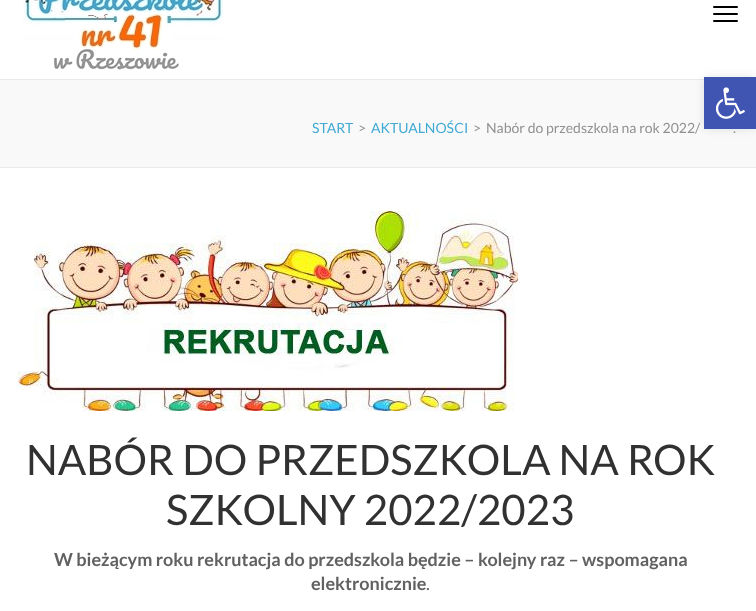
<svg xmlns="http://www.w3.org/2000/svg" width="756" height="611">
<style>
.a{font:14px Lato;fill:#41aad4}
.b{font:14px Lato;fill:#919191}
.c{font:42px Lato;fill:#313131}
.d{font:bold 18px Lato;fill:#616161}
.e{font:18px Lato;fill:#616161}
</style>
<rect width="100%" height="100%" fill="#fff"/>
<path fill="#f9f9f9" d="M0 80h756v87H0z"/>
<path fill="#e9e9e9" d="M0 79h704v1H0z"/>
<path fill="#0000001a" filter="blur(5px)" d="M704 77h52v52H704z"/>
<path fill="#4054b2" d="M704 77h52v52H704z"/>
<image href="1.png" x="715" y="87" width="30" height="32"/>
<image href="2.png" x="23" y="0" width="200" height="70"/>
<rect fill="#000" x="713" y="6" width="25" height="2" rx="1"/>
<rect fill="#000" x="713" y="13" width="25" height="2" rx="1"/>
<rect fill="#000" x="713" y="20" width="25" height="2" rx="1"/>
<path fill="#e9e9e9" d="M0 167h756v1H0z"/>
<image href="3.png" x="18" y="211" width="500" height="200"/>
<text class="a" x="312" y="133">START</text>
<text class="b" x="358" y="133">&gt;</text>
<text class="a" x="371" y="133">AKTUALNOŚCI</text>
<text class="b" x="473" y="133">&gt;</text>
<text class="b" x="486" y="133">Nabór do przedszkola na rok 2022/</text>
<text class="b" x="733" y="133">.</text>
<text class="c" x="26" y="475">NABÓR DO PRZEDSZKOLA NA ROK</text>
<text class="c" x="166" y="525">SZKOLNY 2022/2023</text>
<text class="d" x="54" y="566">W bieżącym roku rekrutacja do przedszkola będzie – kolejny raz – wspomagana</text>
<text class="d" x="311" y="590">elektronicznie</text>
<text class="e" x="426" y="590">.</text>
</svg>
